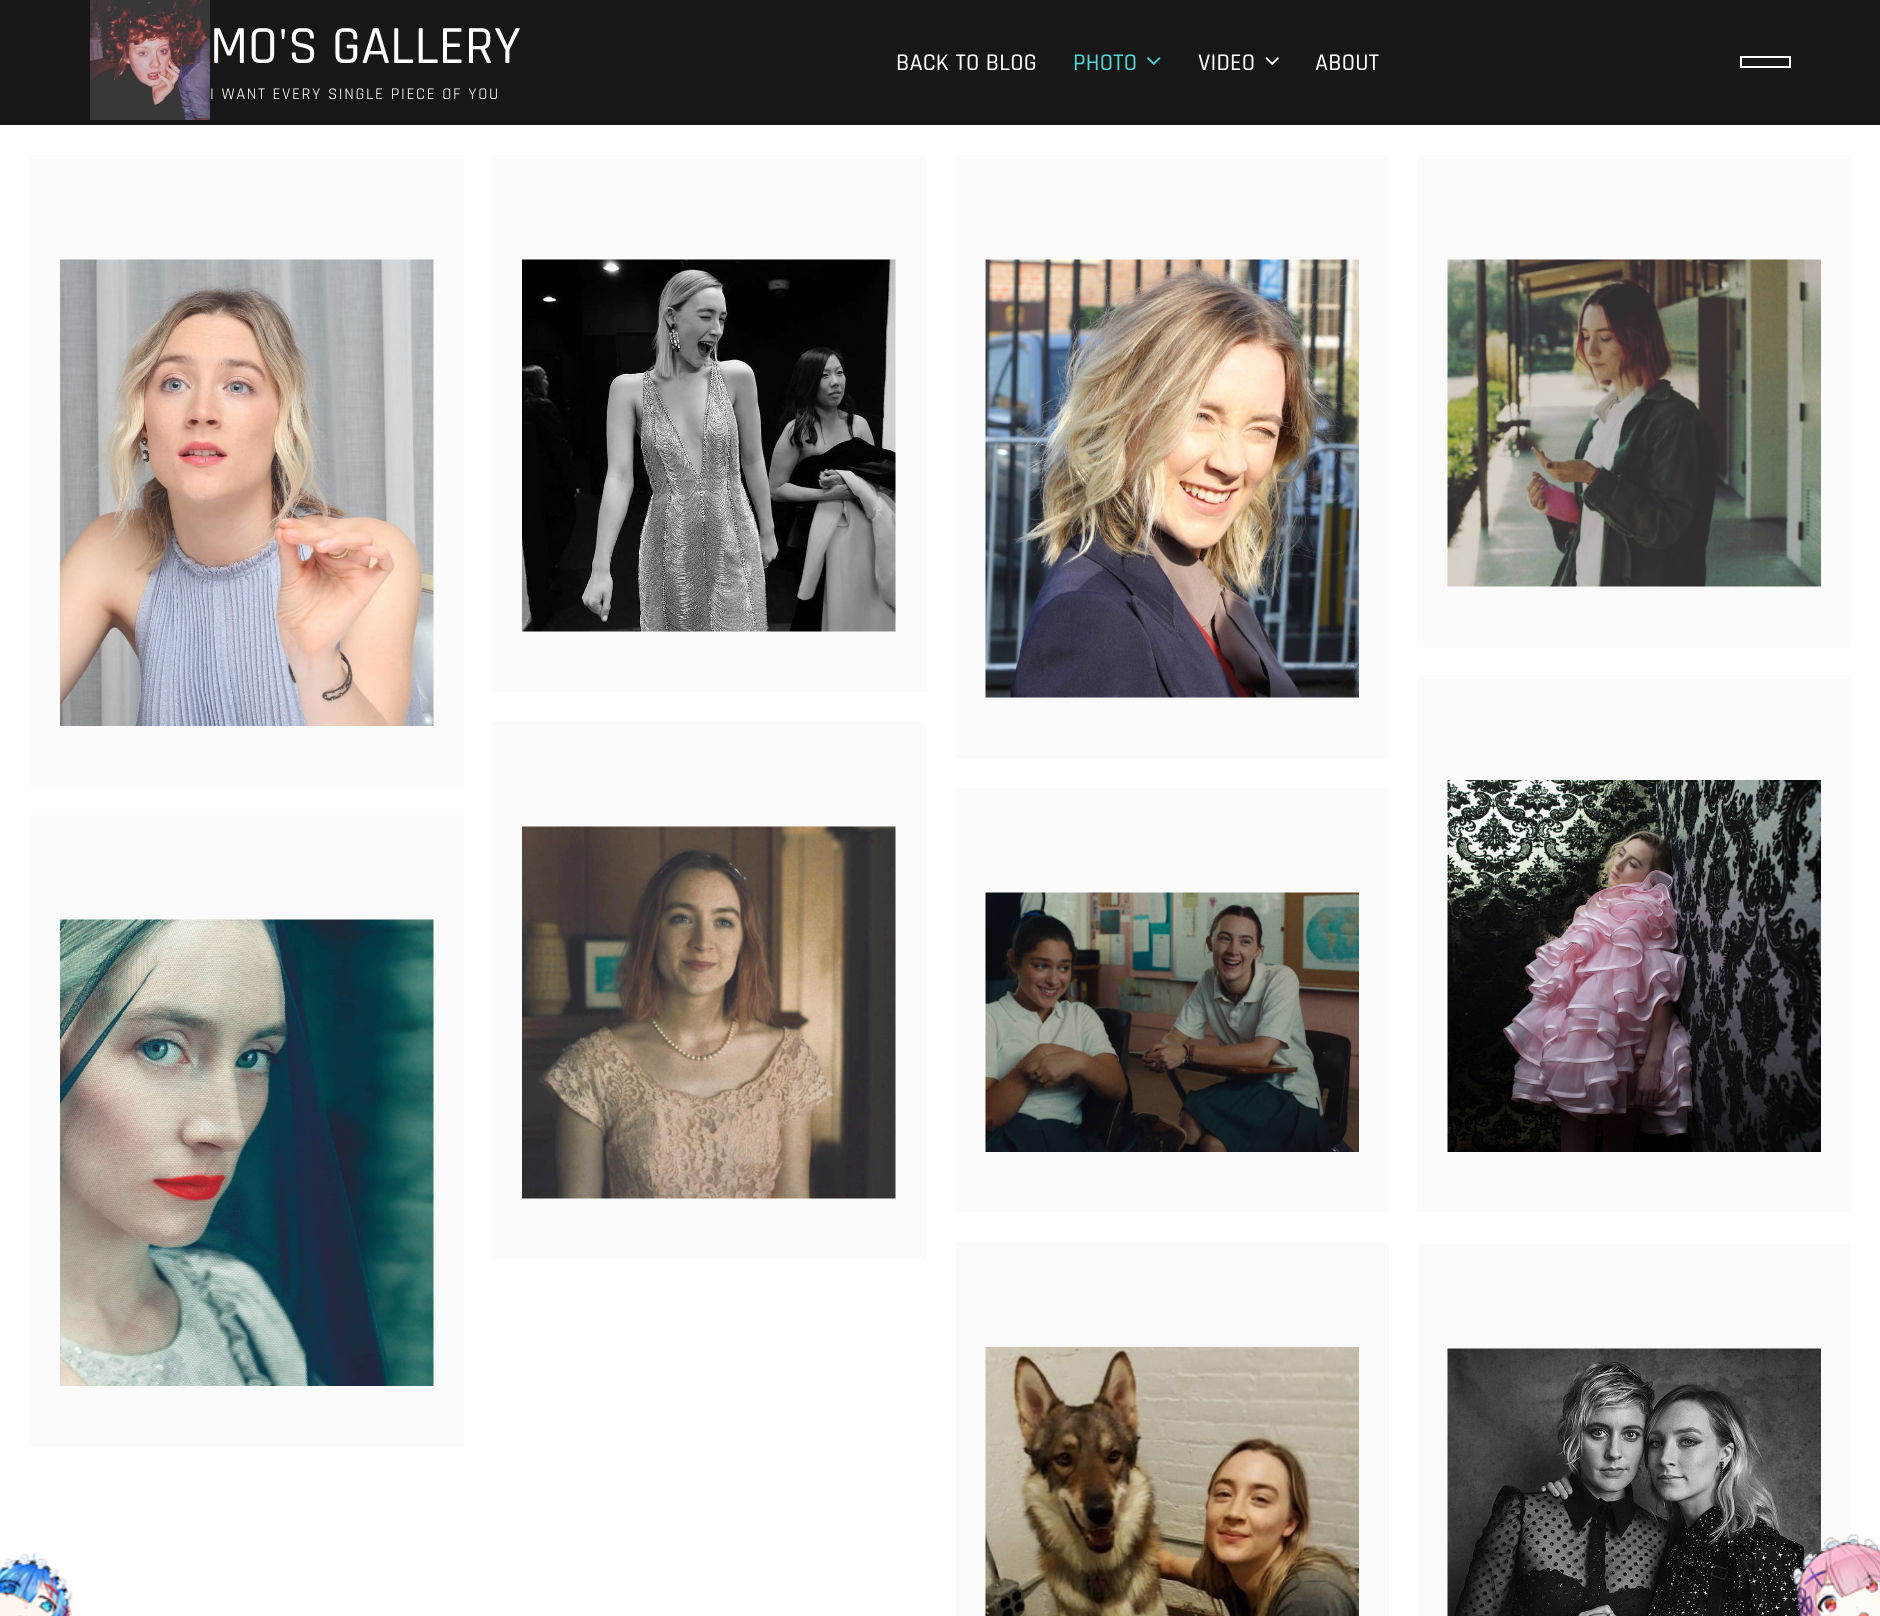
<svg xmlns="http://www.w3.org/2000/svg" width="1880" height="1616">
<style>
.a{font:500 54px Rajdhani;fill:#fff}
.b{font:16.5px Rajdhani;letter-spacing:1.65px;fill:#fff}
.c{font:500 24px Rajdhani;letter-spacing:0.25px;fill:#fff}
.d{font:500 24px Rajdhani;letter-spacing:0.25px;fill:#50d8d6}
</style>
<rect width="100%" height="100%" fill="#fff"/>
<path fill="#171717" d="M0 0h1880v125H0z"/>
<image href="1.png" x="90" y="0" width="120" height="120"/>
<image href="2.png" x="1147" y="57" width="14" height="8"/>
<image href="3.png" x="1265" y="57" width="14" height="8"/>
<path fill="none" stroke="#fff" stroke-width="2" d="M1741 57h49v10H1741z"/>
<path fill="#fbfbfb" d="M30 155h434v631H30z"/>
<image href="4.png" x="60" y="259" width="374" height="467"/>
<path fill="#fbfbfb" d="M492 155h434v537H492z"/>
<image href="5.png" x="522" y="259" width="374" height="373"/>
<path fill="#fbfbfb" d="M956 155h433v603H956z"/>
<image href="6.png" x="985" y="259" width="374" height="439"/>
<path fill="#fbfbfb" d="M1418 155h433v492H1418z"/>
<image href="7.png" x="1447" y="259" width="374" height="328"/>
<path fill="#fbfbfb" d="M30 815h434v631H30z"/>
<image href="8.png" x="60" y="919" width="374" height="467"/>
<path fill="#fbfbfb" d="M492 722h434v537H492z"/>
<image href="9.png" x="522" y="826" width="374" height="373"/>
<path fill="#fbfbfb" d="M956 788h433v424H956z"/>
<image href="10.png" x="985" y="892" width="374" height="260"/>
<path fill="#fbfbfb" d="M1418 675h433v537H1418z"/>
<image href="11.png" x="1447" y="780" width="374" height="372"/>
<path fill="#fafafa" d="M956 1242h433v374H956z"/>
<image href="12.png" x="985" y="1347" width="374" height="269"/>
<path fill="#fafafa" d="M1418 1244h433v372H1418z"/>
<image href="13.png" x="1447" y="1348" width="374" height="268"/>
<image href="14.png" x="0" y="1552" width="73" height="64"/>
<image href="15.png" x="1792" y="1534" width="88" height="82"/>
<text class="a" x="210" y="63">MO'S GALLERY</text>
<text class="b" x="210" y="99">I WANT EVERY SINGLE PIECE OF YOU</text>
<text class="c" x="896" y="70">BACK TO BLOG</text>
<text class="d" x="1073" y="70">PHOTO</text>
<text class="c" x="1198" y="70">VIDEO</text>
<text class="c" x="1315" y="70">ABOUT</text>
</svg>
